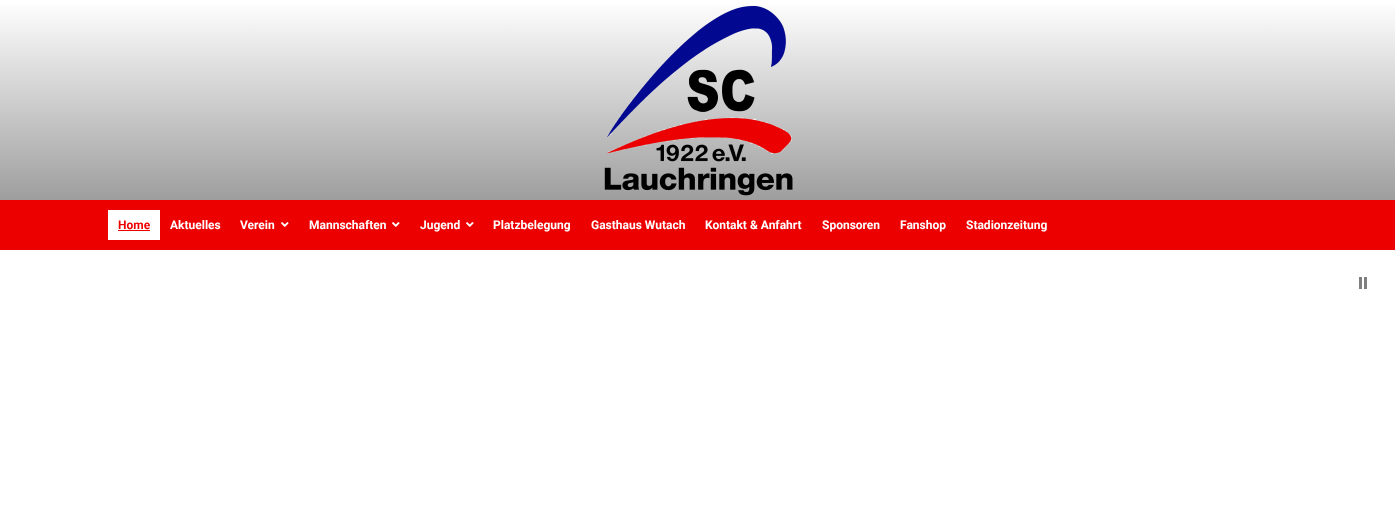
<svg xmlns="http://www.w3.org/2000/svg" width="1395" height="516">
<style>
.a{font:bold 12px Roboto;fill:#ec0000}
.b{font:bold 12px Roboto;fill:#fff}
</style>
<defs>
<linearGradient id="g1" gradientUnits="userSpaceOnUse" x1="698" y1="0" x2="698" y2="200"><stop offset="0" stop-color="#fff"/><stop offset="1" stop-color="#9e9e9e"/></linearGradient>
</defs>
<rect width="100%" height="100%" fill="#fff"/>
<path fill="url(#g1)" d="M0 5h1395v195H0z"/>
<image href="1.png" x="604" y="5" width="189" height="191"/>
<path fill="#ec0000" d="M0 200h1395v50H0z"/>
<path fill="#fff" d="M108 210h52v30H108z"/>
<path fill="#ec0000" d="M118 230h32v1H118z"/>
<image href="2.png" x="281" y="222" width="8" height="5"/>
<image href="2.png" x="392" y="222" width="8" height="5"/>
<image href="2.png" x="466" y="222" width="8" height="5"/>
<image href="3.png" x="1359" y="277" width="8" height="12"/>
<text class="a" x="118" y="229">Home</text>
<text class="b" x="170" y="229">Aktuelles</text>
<text class="b" x="240" y="229">Verein</text>
<text class="b" x="309" y="229">Mannschaften</text>
<text class="b" x="420" y="229">Jugend</text>
<text class="b" x="493" y="229">Platzbelegung</text>
<text class="b" x="591" y="229">Gasthaus Wutach</text>
<text class="b" x="705" y="229">Kontakt &amp; Anfahrt</text>
<text class="b" x="822" y="229">Sponsoren</text>
<text class="b" x="900" y="229">Fanshop</text>
<text class="b" x="966" y="229">Stadionzeitung</text>
</svg>
